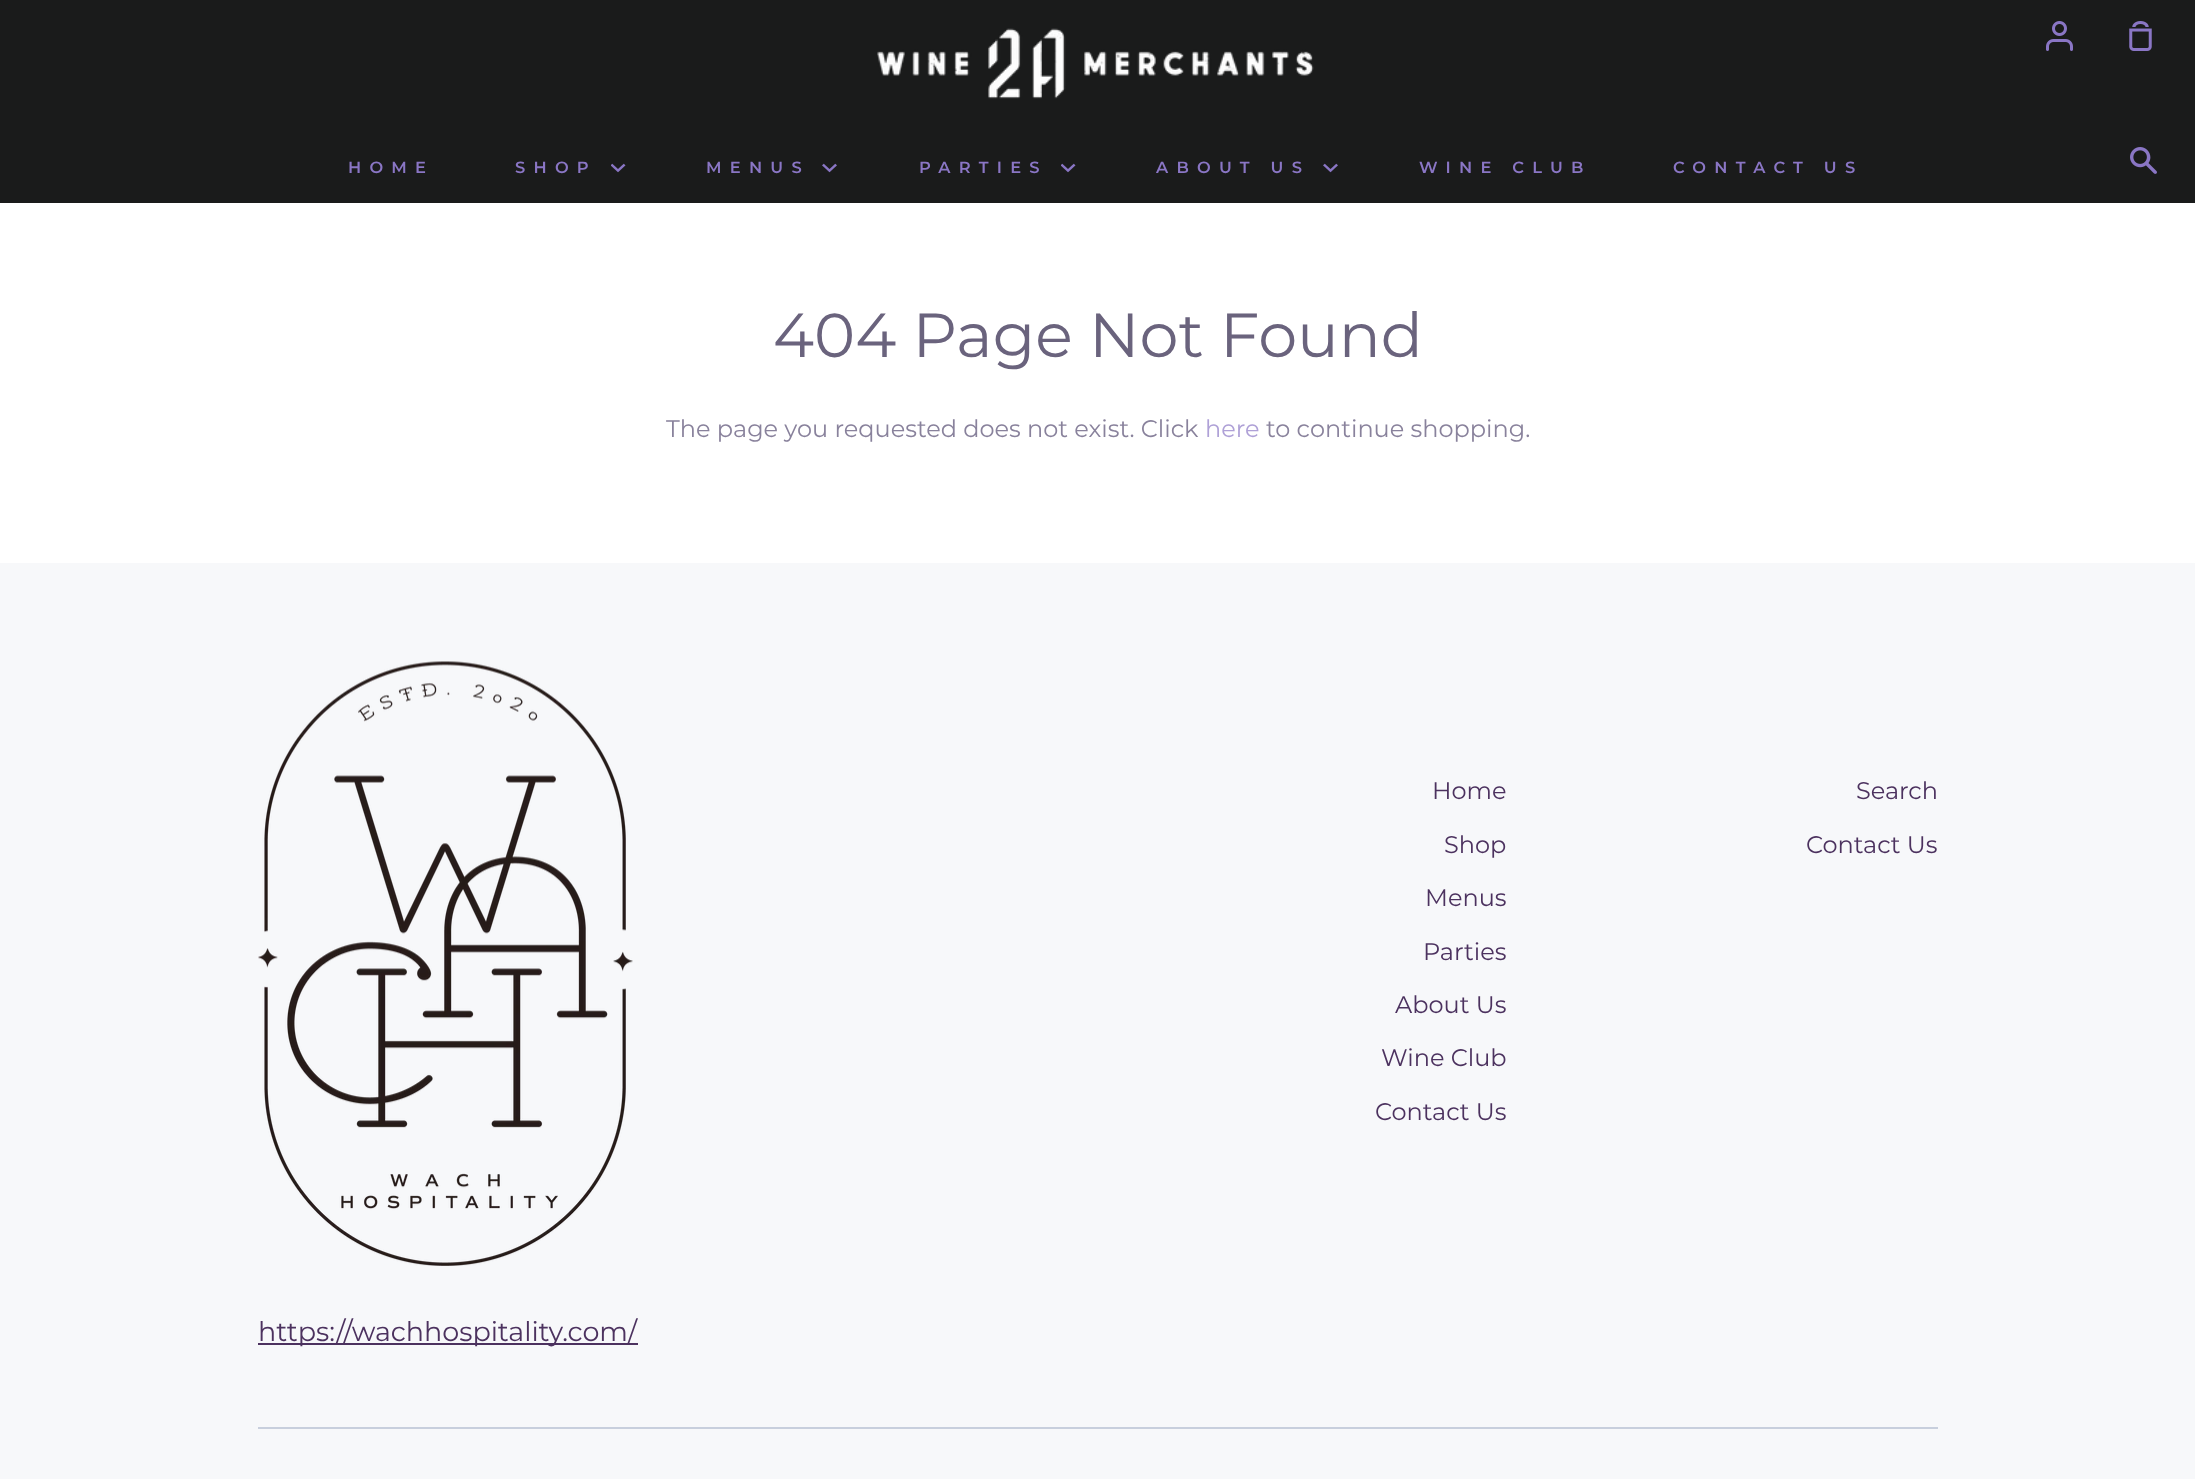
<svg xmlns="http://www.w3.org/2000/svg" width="2195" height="1479">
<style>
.a{font:600 16.25px Montserrat;letter-spacing:8.25px;fill:#8a76c5}
.b{font:62.1px Montserrat;fill:#6a637d}
.c{font:24px Montserrat;fill:#89829c}
.d{font:24px Montserrat;fill:#afa1d7}
.e{font:24px Montserrat;fill:#4c325f}
.f{font:27px Montserrat;fill:#4c325f}
</style>
<rect width="100%" height="100%" fill="#fff"/>
<path fill="#1a1b1b" d="M0 0h2195v203H0z"/>
<image href="1.png" x="877" y="28" width="437" height="71"/>
<image href="2.png" x="2046" y="21" width="27" height="30"/>
<image href="3.png" x="2129" y="21" width="23" height="30"/>
<image href="4.png" x="611" y="163" width="15" height="10"/>
<image href="5.png" x="822" y="163" width="15" height="10"/>
<image href="4.png" x="1061" y="163" width="15" height="10"/>
<image href="5.png" x="1323" y="163" width="15" height="10"/>
<image href="6.png" x="2130" y="147" width="27" height="27"/>
<path fill="#f7f8fa" d="M0 563h2195v916H0z"/>
<image href="7.png" x="258" y="661" width="375" height="605"/>
<path fill="#4c325f" d="M258 1343h380v2H258z"/>
<path fill="#c8cfdd" d="M258 1427h1680v2H258z"/>
<text class="a" x="348" y="173">HOME</text>
<text class="a" x="515" y="173">SHOP</text>
<text class="a" x="706" y="173">MENUS</text>
<text class="a" x="919" y="173">PARTIES</text>
<text class="a" x="1156" y="173">ABOUT US</text>
<text class="a" x="1419" y="173">WINE CLUB</text>
<text class="a" x="1673" y="173">CONTACT US</text>
<text class="b" x="773" y="357">404 Page Not Found</text>
<text class="c" x="666" y="437">The page you requested does not exist. Click</text>
<text class="d" x="1205" y="437">here</text>
<text class="c" x="1266" y="437">to continue shopping.</text>
<text class="e" x="1432" y="799">Home</text>
<text class="e" x="1444" y="853">Shop</text>
<text class="e" x="1425" y="906">Menus</text>
<text class="e" x="1423" y="960">Parties</text>
<text class="e" x="1395" y="1013">About Us</text>
<text class="e" x="1381" y="1066">Wine Club</text>
<text class="e" x="1375" y="1120">Contact Us</text>
<text class="e" x="1856" y="799">Search</text>
<text class="e" x="1806" y="853">Contact Us</text>
<text class="f" x="258" y="1341">https://wachhospitality.com/</text>
</svg>
